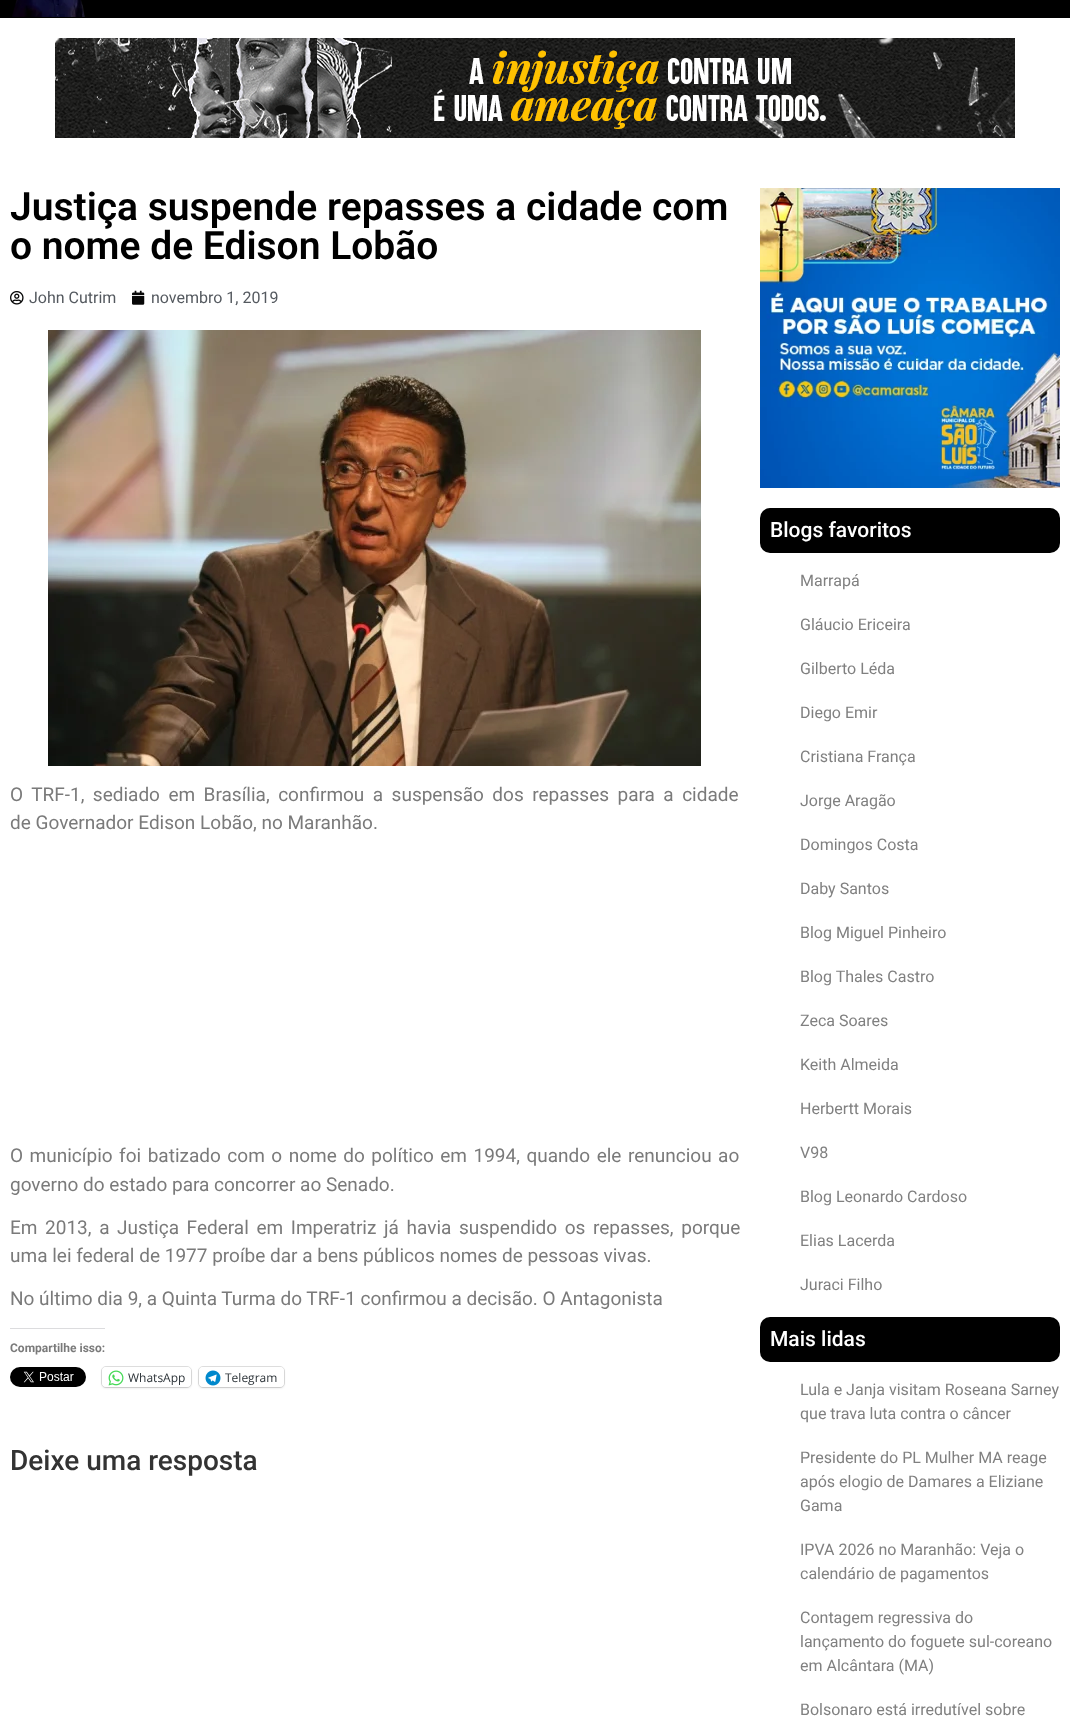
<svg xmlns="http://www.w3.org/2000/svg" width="1070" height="1726">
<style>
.a{font:600 39px Roboto;fill:#000}
.b{font:16px Roboto;fill:#54595f}
.c{font:19px Roboto;fill:#7a7a7a}
.d{font:bold 12px Roboto;fill:#7a7a7a}
.e{font:12px Open Sans;fill:#2c3338}
.f{font:500 28px Roboto;fill:#333}
.g{font:500 21px Roboto;fill:#fff}
.h{font:16px Roboto;fill:#808080}
</style>
<rect width="100%" height="100%" fill="#fff"/>
<path fill="#000" d="M0 0h1070v18H0z"/>
<image href="1.png" x="12" y="0" width="73" height="17"/>
<image href="2.png" x="55" y="38" width="960" height="100"/>
<image href="3.png" x="10" y="291" width="14" height="14"/>
<image href="4.png" x="132" y="290" width="13" height="15"/>
<image href="5.png" x="48" y="330" width="653" height="436"/>
<path fill="#dcdcde" d="M10 1328h95v1H10z"/>
<image href="6.png" x="10" y="1367" width="76" height="20"/>
<rect fill="none" stroke="#e0e0e0" x="101.5" y="1366.5" width="90" height="21" rx="4.5"/>
<rect fill="#0000001f" filter="blur(1px)" x="102" y="1368" width="89" height="20" rx="4"/>
<rect fill="#fff" x="102" y="1367" width="89" height="20" rx="4"/>
<image href="7.png" x="108" y="1370" width="16" height="16"/>
<rect fill="none" stroke="#e0e0e0" x="198.5" y="1366.5" width="86" height="21" rx="4.5"/>
<rect fill="#0000001f" filter="blur(1px)" x="199" y="1368" width="85" height="20" rx="4"/>
<rect fill="#fff" x="199" y="1367" width="85" height="20" rx="4"/>
<image href="8.png" x="205" y="1370" width="16" height="16"/>
<image href="9.png" x="760" y="188" width="300" height="300"/>
<rect fill="#000" x="760" y="508" width="300" height="45" rx="10"/>
<rect fill="#000" x="760" y="1317" width="300" height="45" rx="10"/>
<text class="a" x="10" y="220">Justiça suspende repasses a cidade com</text>
<text class="a" x="10" y="259">o nome de Edison Lobão</text>
<text class="b" x="29" y="303">John Cutrim</text>
<text class="b" x="151" y="303">novembro 1, 2019</text>
<text class="c" x="10" y="801" word-spacing="3.75">O TRF-1, sediado em Brasília, confirmou a suspensão dos repasses para a cidade</text>
<text class="c" x="10" y="829">de Governador Edison Lobão, no Maranhão.</text>
<text class="c" x="10" y="1162" word-spacing="1.8">O município foi batizado com o nome do político em 1994, quando ele renunciou ao</text>
<text class="c" x="10" y="1191">governo do estado para concorrer ao Senado.</text>
<text class="c" x="10" y="1234" word-spacing="2.9">Em 2013, a Justiça Federal em Imperatriz já havia suspendido os repasses, porque</text>
<text class="c" x="10" y="1262">uma lei federal de 1977 proíbe dar a bens públicos nomes de pessoas vivas.</text>
<text class="c" x="10" y="1305">No último dia 9, a Quinta Turma do TRF-1 confirmou a decisão. O Antagonista</text>
<text class="d" x="10" y="1352">Compartilhe isso:</text>
<text class="e" x="128" y="1382">WhatsApp</text>
<text class="e" x="225" y="1382">Telegram</text>
<text class="f" x="10" y="1470">Deixe uma resposta</text>
<text class="g" x="770" y="537">Blogs favoritos</text>
<text class="h" x="800" y="586">Marrapá</text>
<text class="h" x="800" y="630">Gláucio Ericeira</text>
<text class="h" x="800" y="674">Gilberto Léda</text>
<text class="h" x="800" y="718">Diego Emir</text>
<text class="h" x="800" y="762">Cristiana França</text>
<text class="h" x="800" y="806">Jorge Aragão</text>
<text class="h" x="800" y="850">Domingos Costa</text>
<text class="h" x="800" y="894">Daby Santos</text>
<text class="h" x="800" y="938">Blog Miguel Pinheiro</text>
<text class="h" x="800" y="982">Blog Thales Castro</text>
<text class="h" x="800" y="1026">Zeca Soares</text>
<text class="h" x="800" y="1070">Keith Almeida</text>
<text class="h" x="800" y="1114">Herbertt Morais</text>
<text class="h" x="800" y="1158">V98</text>
<text class="h" x="800" y="1202">Blog Leonardo Cardoso</text>
<text class="h" x="800" y="1246">Elias Lacerda</text>
<text class="h" x="800" y="1290">Juraci Filho</text>
<text class="g" x="770" y="1346">Mais lidas</text>
<text class="h" x="800" y="1395">Lula e Janja visitam Roseana Sarney</text>
<text class="h" x="800" y="1419">que trava luta contra o câncer</text>
<text class="h" x="800" y="1463">Presidente do PL Mulher MA reage</text>
<text class="h" x="800" y="1487">após elogio de Damares a Eliziane</text>
<text class="h" x="800" y="1511">Gama</text>
<text class="h" x="800" y="1555">IPVA 2026 no Maranhão: Veja o</text>
<text class="h" x="800" y="1579">calendário de pagamentos</text>
<text class="h" x="800" y="1623">Contagem regressiva do</text>
<text class="h" x="800" y="1647">lançamento do foguete sul-coreano</text>
<text class="h" x="800" y="1671">em Alcântara (MA)</text>
<text class="h" x="800" y="1715">Bolsonaro está irredutível sobre</text>
</svg>
